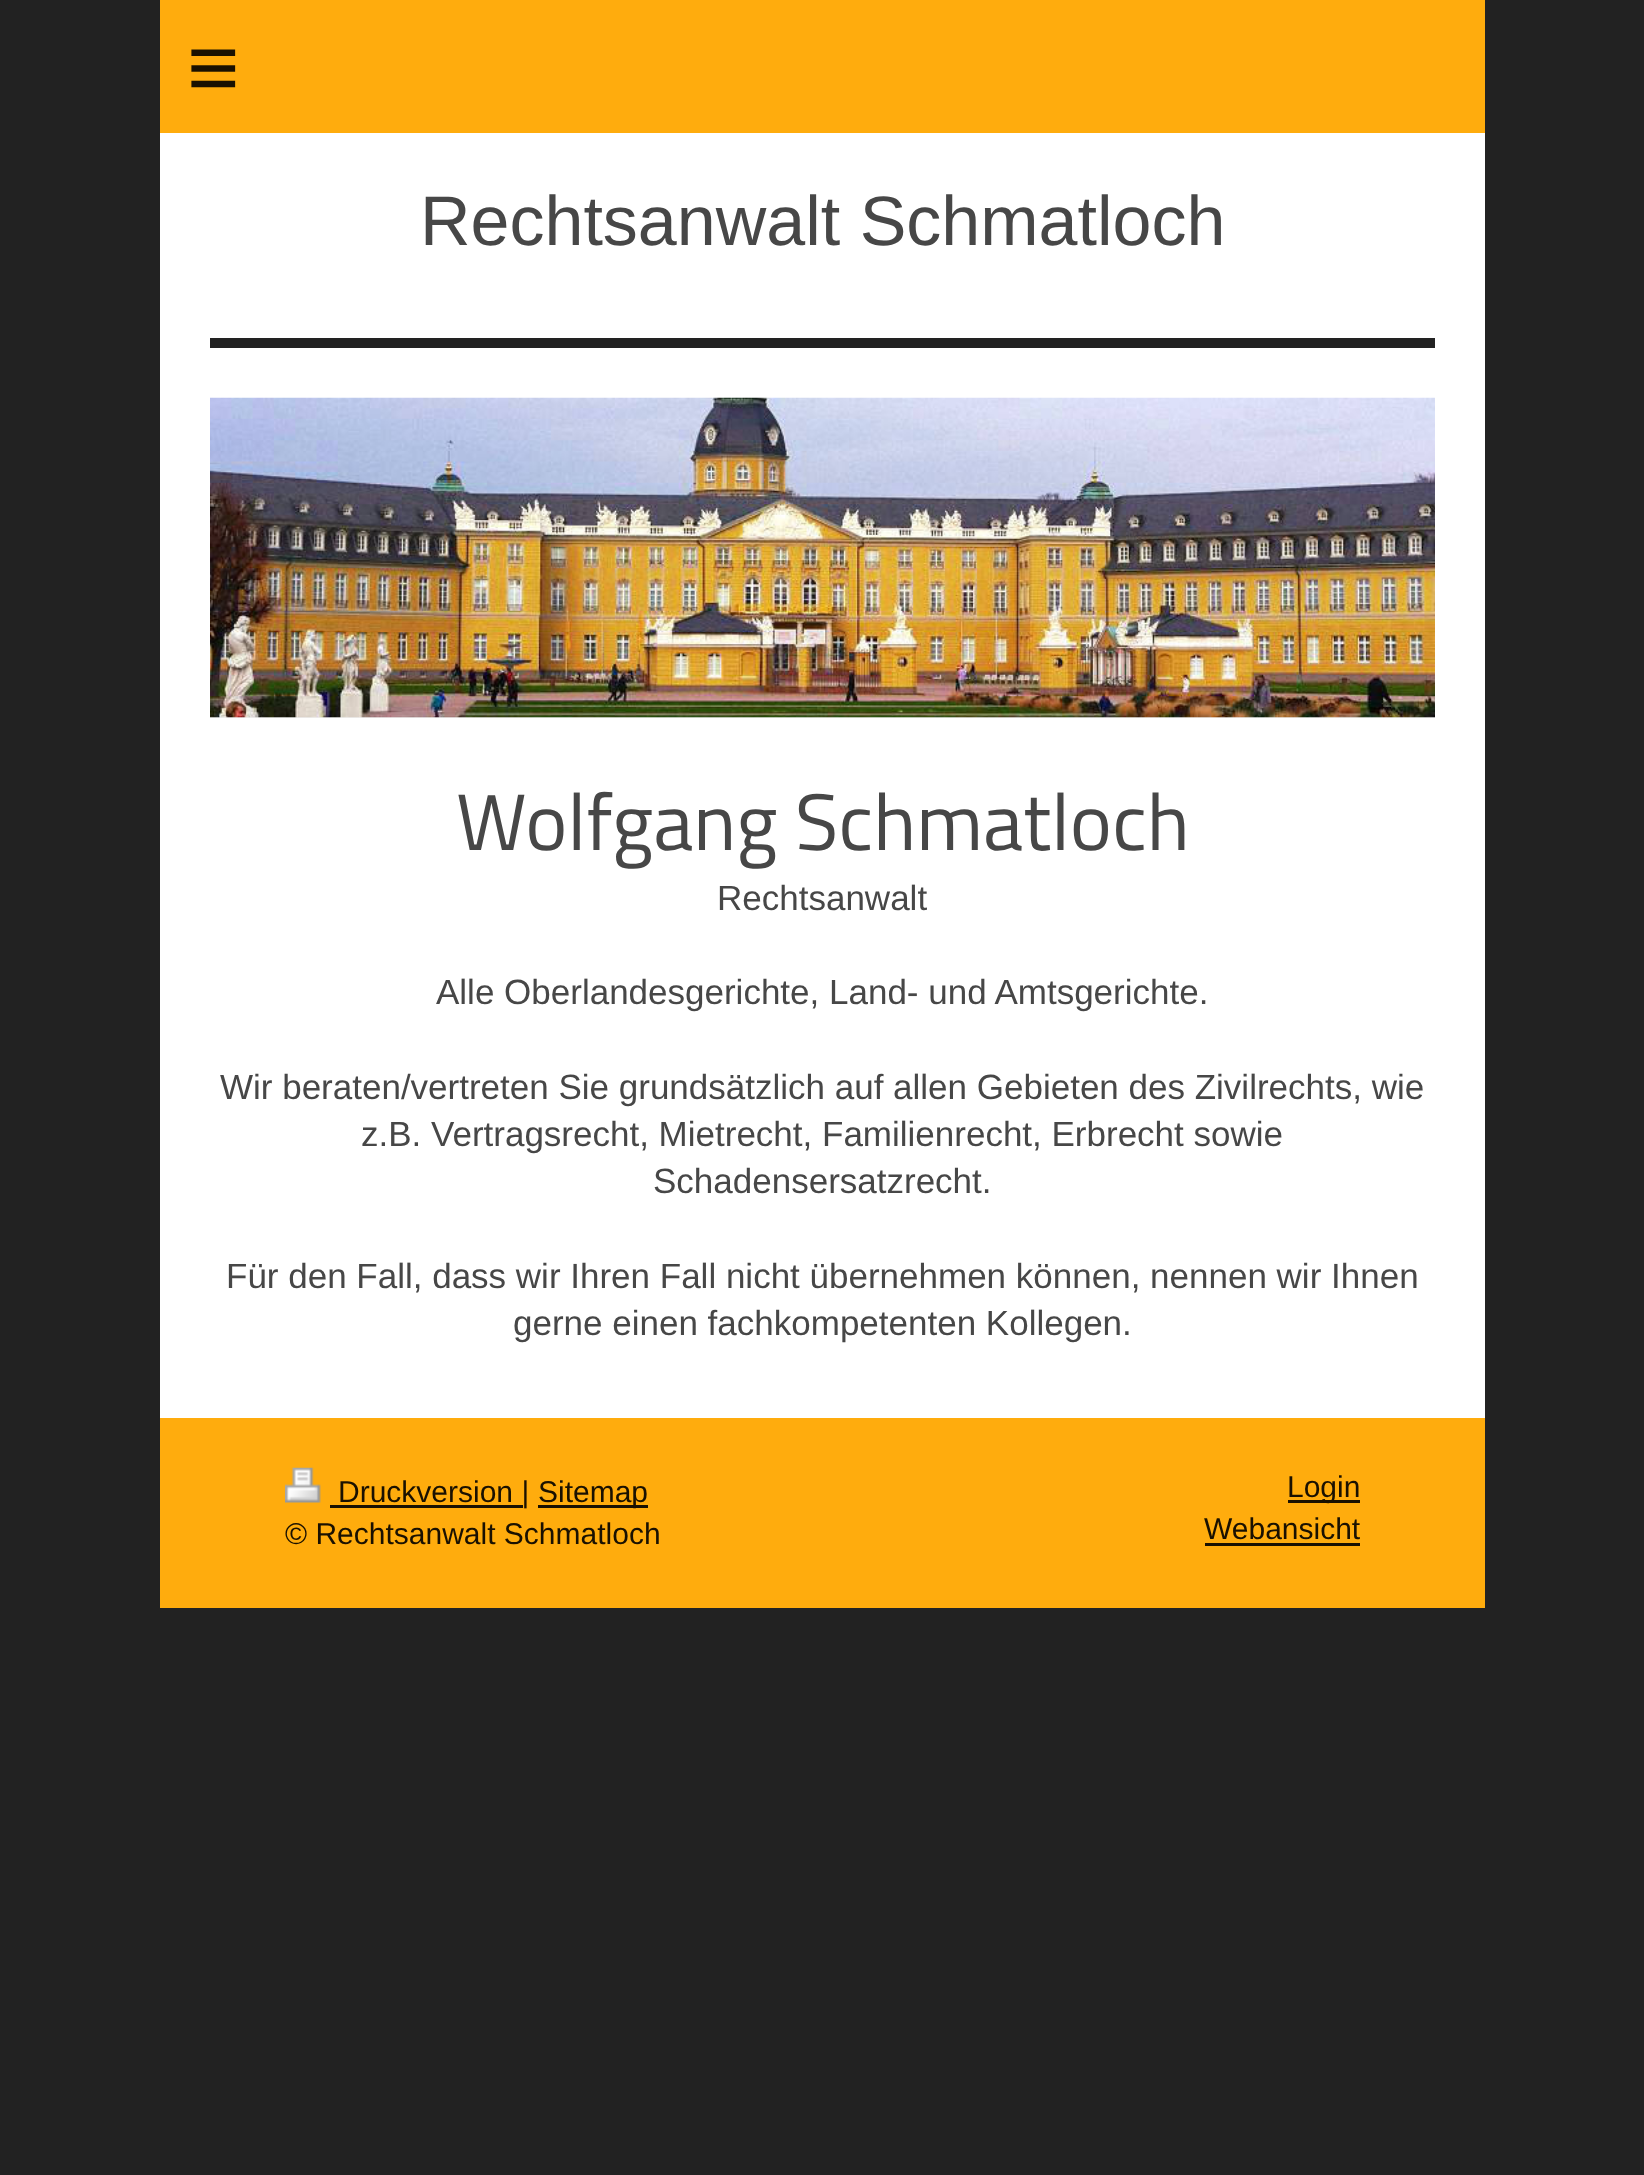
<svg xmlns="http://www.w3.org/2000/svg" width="1644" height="2175">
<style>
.a{font:90px Liberation Sans;letter-spacing:26px;fill:#1a1101}
.b{font:70px Liberation Sans;fill:#474747}
.c{font:80px Titillium Web;fill:#474747}
.d{font:35px Liberation Sans;fill:#474747}
.e{font:30px Liberation Sans;fill:#1a1101}
</style>
<rect width="100%" height="100%" fill="#222"/>
<path fill="#ffac0d" d="M160 0h1325v133H160z"/>
<path fill="#fff" d="M160 133h1325v1285H160z"/>
<path fill="#222" d="M210 338h1225v10H210z"/>
<path fill="#eee" d="M210 717h1225v1H210z"/>
<image href="1.png" x="210" y="397" width="1225" height="321"/>
<path fill="#ffac0d" d="M160 1418h1325v190H160z"/>
<image href="2.png" x="285" y="1467" width="36" height="36"/>
<path fill="#1a1101" d="M330 1505h193v3H330z"/>
<path fill="#1a1101" d="M538 1505h110v3H538z"/>
<path fill="#1a1101" d="M1288 1500h72v3H1288z"/>
<path fill="#1a1101" d="M1205 1543h155v3H1205z"/>
<text class="a" x="187" y="98">≡</text>
<text class="b" x="420" y="245">Rechtsanwalt Schmatloch</text>
<text class="c" x="456" y="850">Wolfgang Schmatloch</text>
<text class="d" x="717" y="910">Rechtsanwalt</text>
<text class="d" x="436" y="1004">Alle Oberlandesgerichte, Land- und Amtsgerichte.</text>
<text class="d" x="220" y="1099">Wir beraten/vertreten Sie grundsätzlich auf allen Gebieten des Zivilrechts, wie</text>
<text class="d" x="361" y="1146">z.B. Vertragsrecht, Mietrecht, Familienrecht, Erbrecht sowie</text>
<text class="d" x="653" y="1193">Schadensersatzrecht.</text>
<text class="d" x="226" y="1288">Für den Fall, dass wir Ihren Fall nicht übernehmen können, nennen wir Ihnen</text>
<text class="d" x="513" y="1335">gerne einen fachkompetenten Kollegen.</text>
<text class="e" x="338" y="1502">Druckversion |</text>
<text class="e" x="538" y="1502">Sitemap</text>
<text class="e" x="285" y="1544">© Rechtsanwalt Schmatloch</text>
<text class="e" x="1287" y="1497">Login</text>
<text class="e" x="1204" y="1539">Webansicht</text>
</svg>
